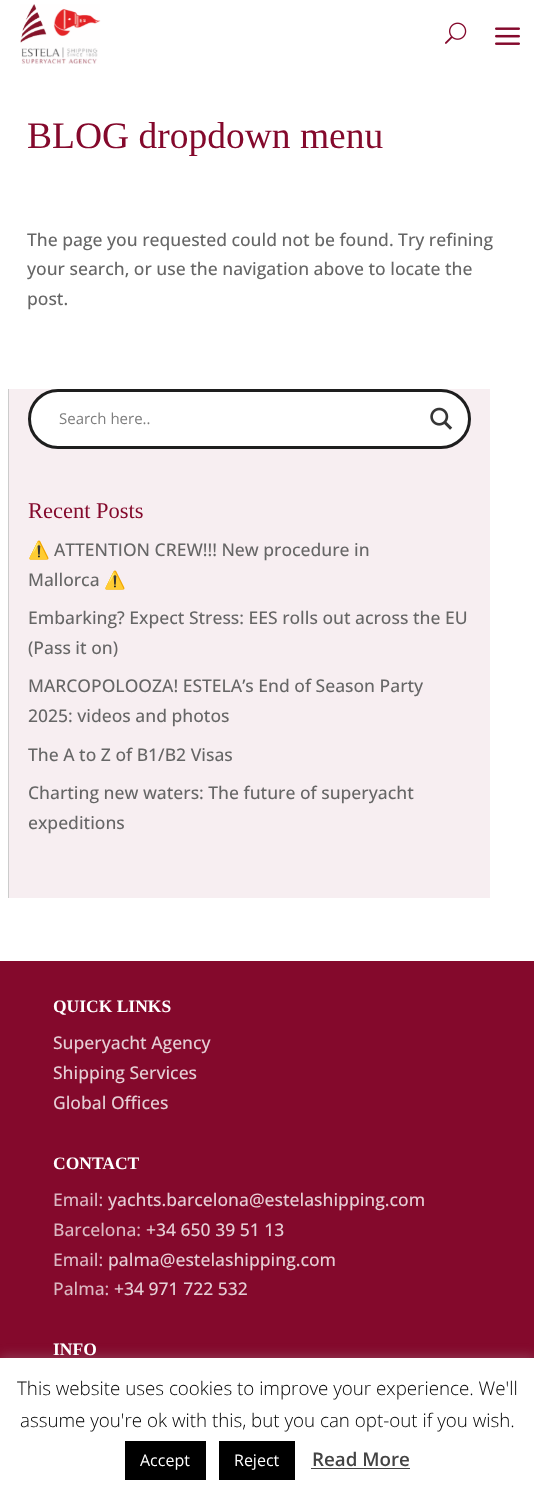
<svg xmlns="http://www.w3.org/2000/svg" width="534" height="1501">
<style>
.a{font:37.5px Liberation Serif;fill:#84092c}
.b{font:500 17.5px Open Sans;fill:#666}
.c{font:15px Open Sans;fill:#7d7d7d}
.d{font:22.5px Liberation Serif;fill:#84092c}
.e{font:17.5px Noto Color Emoji;fill:#666}
.f{font:bold 17.5px Liberation Serif;fill:#fff}
.g{font:500 17.5px Open Sans;fill:#e6ced5}
.h{font:500 17.5px Open Sans;fill:#dbb8c2}
.i{font:300 18.75px Open Sans;fill:#000}
.j{font:16px Open Sans;fill:#fff}
.k{font:600 18.75px Open Sans;fill:#444}
</style>
<rect width="100%" height="100%" fill="#fff"/>
<image href="1.png" x="20" y="4" width="81" height="60"/>
<image href="2.png" x="445" y="22" width="22" height="22"/>
<image href="3.png" x="495" y="27" width="25" height="18"/>
<path fill="#f7eef1" d="M9 389h481v509H9z"/>
<path fill="#ccc" d="M8 389h1v509H8z"/>
<rect fill="#fff" stroke="#1e1e1e" stroke-width="3" x="29.5" y="390.5" width="440" height="57" rx="28.5"/>
<image href="4.png" x="430" y="407" width="23" height="23"/>
<path fill="#84092c" d="M0 961h534v397H0z"/>
<path fill="#acabab4d" filter="blur(6px)" d="M0 1356h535v144H0z"/>
<path fill="#fff" d="M0 1358h534v143H0z"/>
<path fill="#000" d="M125 1441h81v39H125z"/>
<path fill="#000" d="M219 1441h76v39H219z"/>
<path fill="#444" d="M311 1468h99v1H311z"/>
<text class="a" x="27" y="148">BLOG dropdown menu</text>
<text class="b" x="27" y="246">The page you requested could not be found. Try refining</text>
<text class="b" x="27" y="275">your search, or use the navigation above to locate the</text>
<text class="b" x="27" y="305">post.</text>
<text class="c" x="59" y="424">Search here..</text>
<text class="d" x="28" y="518">Recent Posts</text>
<text class="e" x="28" y="556">⚠️</text>
<text class="b" x="54" y="556">ATTENTION CREW!!! New procedure in</text>
<text class="b" x="28" y="586">Mallorca</text>
<text class="e" x="104" y="586">⚠️</text>
<text class="b" x="28" y="624">Embarking? Expect Stress: EES rolls out across the EU</text>
<text class="b" x="28" y="654">(Pass it on)</text>
<text class="b" x="28" y="692">MARCOPOLOOZA! ESTELA’s End of Season Party</text>
<text class="b" x="28" y="722">2025: videos and photos</text>
<text class="b" x="28" y="761">The A to Z of B1/B2 Visas</text>
<text class="b" x="28" y="799">Charting new waters: The future of superyacht</text>
<text class="b" x="28" y="829">expeditions</text>
<text class="f" x="53" y="1012">QUICK LINKS</text>
<text class="g" x="53" y="1049">Superyacht Agency</text>
<text class="g" x="53" y="1079">Shipping Services</text>
<text class="g" x="53" y="1109">Global Offices</text>
<text class="f" x="53" y="1169">CONTACT</text>
<text class="h" x="53" y="1206">Email:</text>
<text class="g" x="108" y="1206">yachts.barcelona@estelashipping.com</text>
<text class="h" x="53" y="1236">Barcelona:</text>
<text class="g" x="146" y="1236">+34 650 39 51 13</text>
<text class="h" x="53" y="1266">Email:</text>
<text class="g" x="108" y="1266">palma@estelashipping.com</text>
<text class="h" x="53" y="1295">Palma:</text>
<text class="g" x="114" y="1295">+34 971 722 532</text>
<text class="f" x="53" y="1355">INFO</text>
<text class="i" x="17" y="1395">This website uses cookies to improve your experience. We'll</text>
<text class="i" x="20" y="1427">assume you're ok with this, but you can opt-out if you wish.</text>
<text class="j" x="140" y="1466">Accept</text>
<text class="j" x="234" y="1466">Reject</text>
<text class="k" x="312" y="1466">Read More</text>
</svg>
